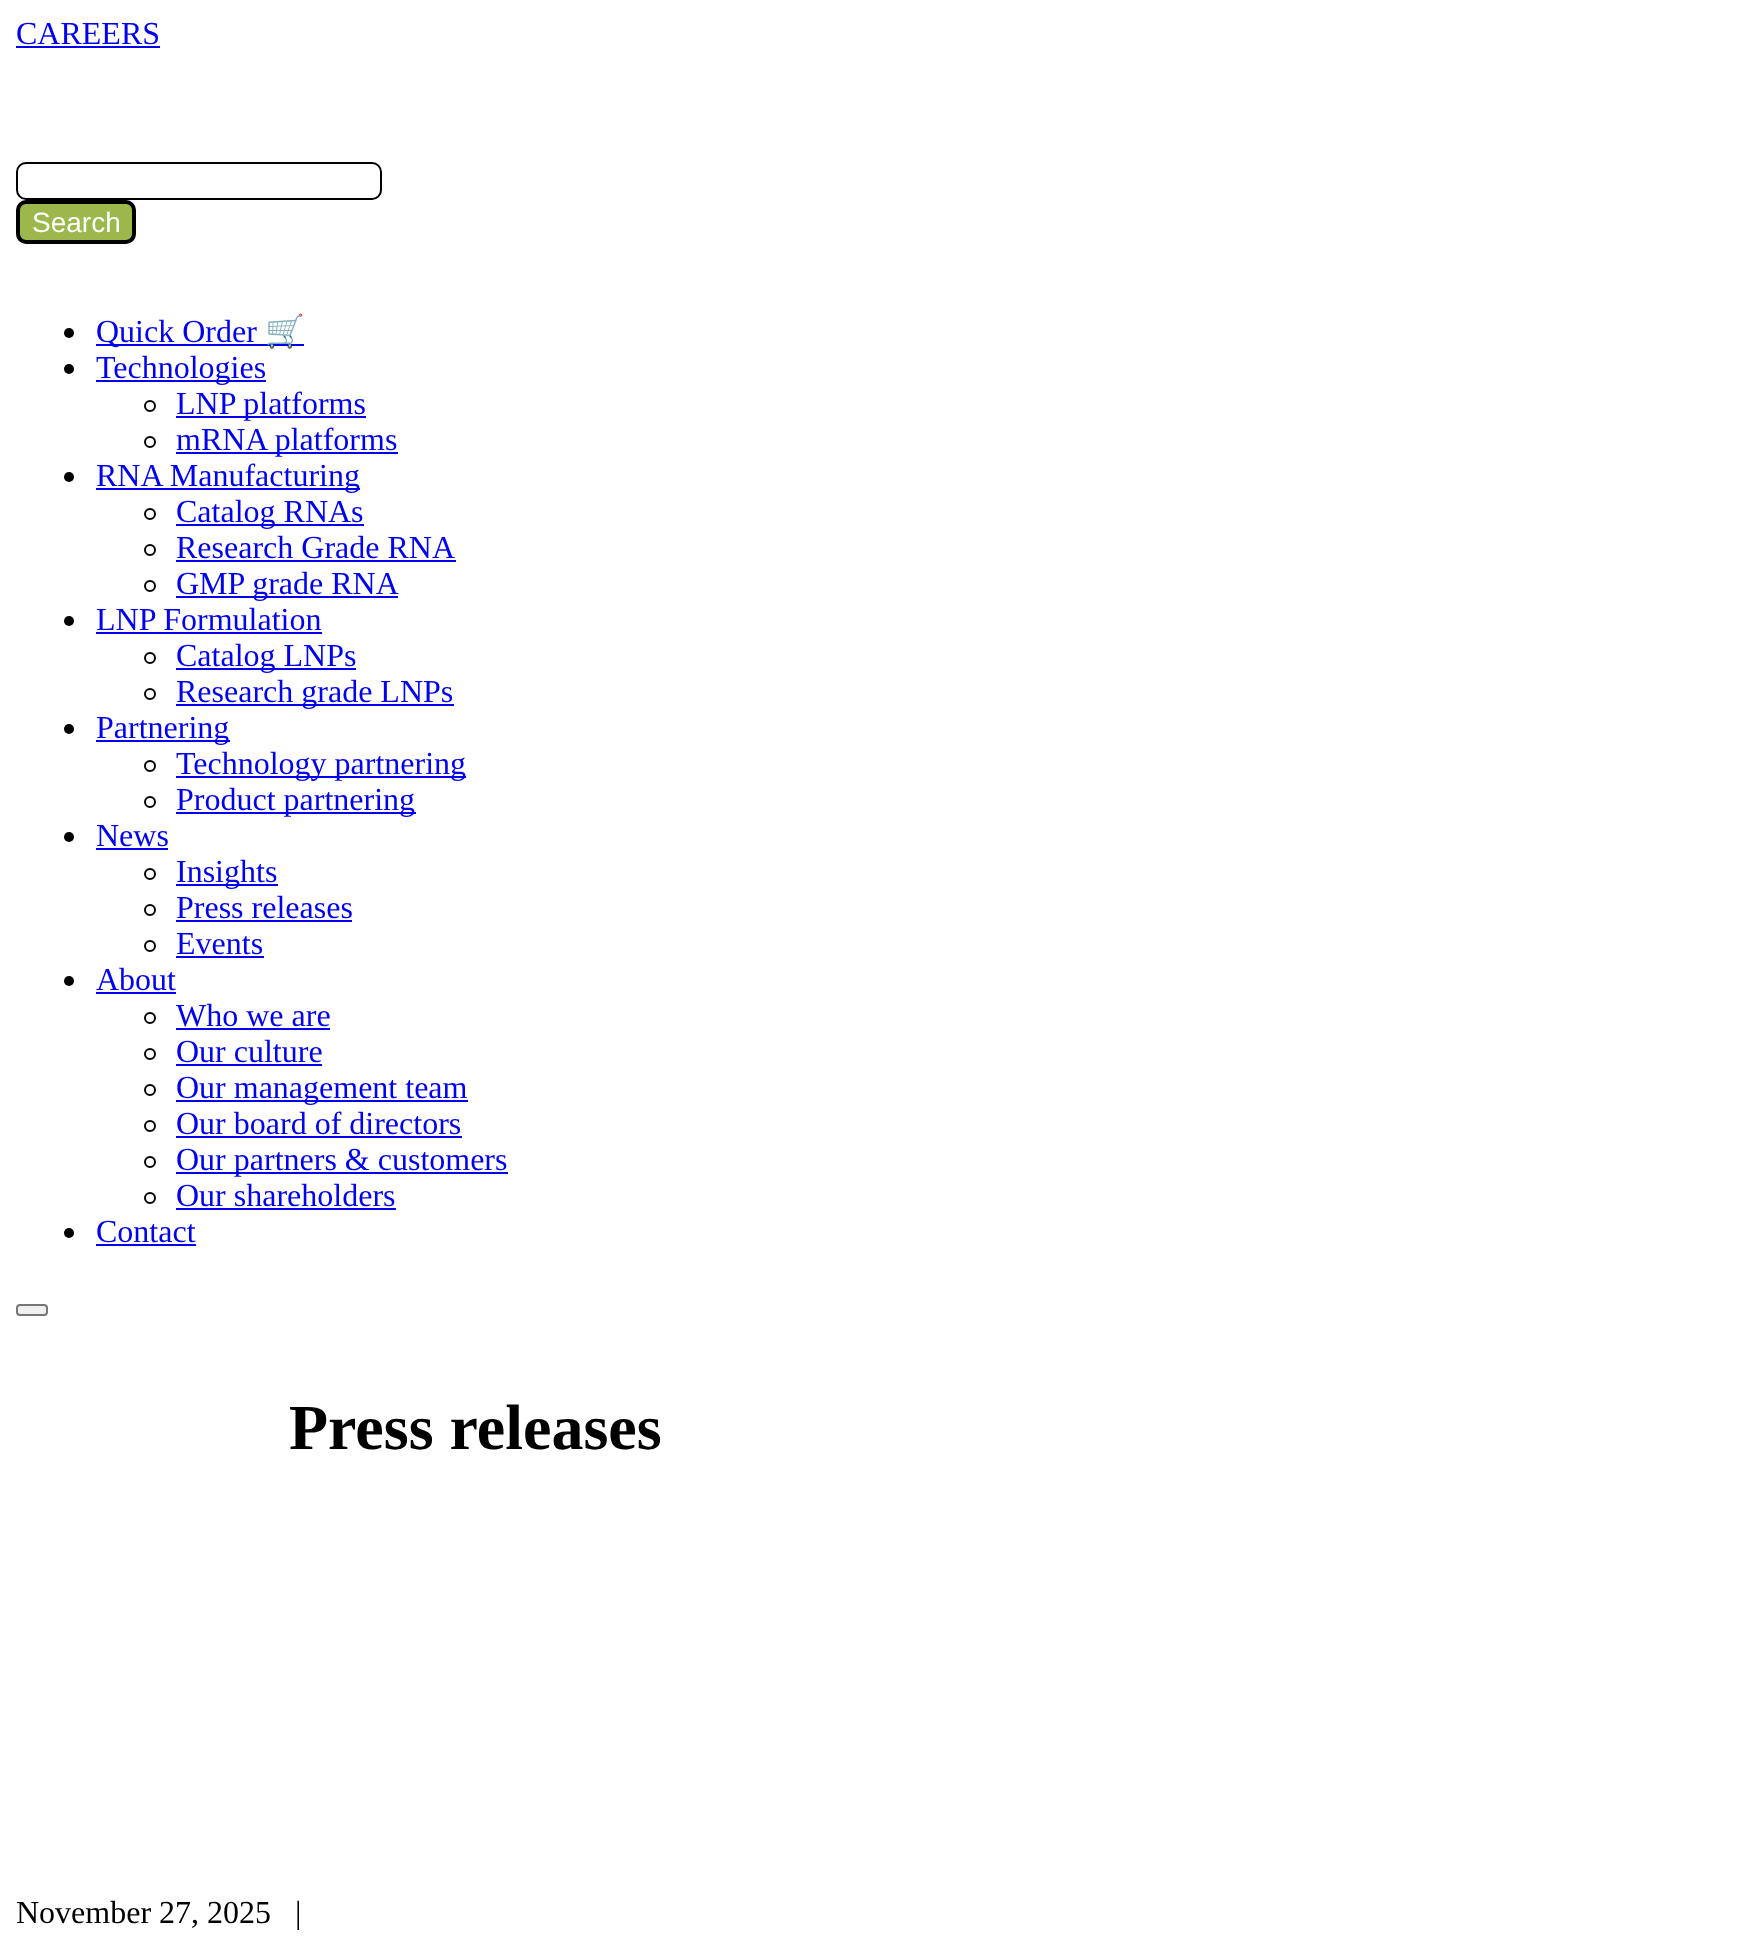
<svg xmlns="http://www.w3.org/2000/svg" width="1740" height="1938">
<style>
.a{font:32px Liberation Serif;fill:#00e}
.b{font:28px Liberation Sans;fill:#fff}
.c{font:32px Noto Color Emoji;fill:#00e}
.d{font:bold 64px Liberation Serif;fill:#000}
.e{font:32px Liberation Serif;fill:#000}
</style>
<rect width="100%" height="100%" fill="#fff"/>
<path fill="#00e" d="M16 46h144v2H16z"/>
<rect fill="none" stroke="#000" stroke-width="2" x="17" y="163" width="364" height="36" rx="9"/>
<rect fill="#9cb74b" stroke="#000" stroke-width="4" x="18" y="202" width="116" height="40" rx="8"/>
<circle fill="#000" cx="69" cy="333" r="5"/>
<path fill="#00e" d="M96 344h208v2H96z"/>
<circle fill="#000" cx="69" cy="369" r="5"/>
<path fill="#00e" d="M96 380h170v2H96z"/>
<circle fill="none" stroke="#000" stroke-width="2" cx="150" cy="406" r="5"/>
<path fill="#00e" d="M176 416h190v2H176z"/>
<circle fill="none" stroke="#000" stroke-width="2" cx="150" cy="442" r="5"/>
<path fill="#00e" d="M176 452h222v2H176z"/>
<circle fill="#000" cx="69" cy="477" r="5"/>
<path fill="#00e" d="M96 488h264v2H96z"/>
<circle fill="none" stroke="#000" stroke-width="2" cx="150" cy="514" r="5"/>
<path fill="#00e" d="M176 524h188v2H176z"/>
<circle fill="none" stroke="#000" stroke-width="2" cx="150" cy="550" r="5"/>
<path fill="#00e" d="M176 560h280v2H176z"/>
<circle fill="none" stroke="#000" stroke-width="2" cx="150" cy="586" r="5"/>
<path fill="#00e" d="M176 596h222v2H176z"/>
<circle fill="#000" cx="69" cy="621" r="5"/>
<path fill="#00e" d="M96 632h226v2H96z"/>
<circle fill="none" stroke="#000" stroke-width="2" cx="150" cy="658" r="5"/>
<path fill="#00e" d="M176 668h180v2H176z"/>
<circle fill="none" stroke="#000" stroke-width="2" cx="150" cy="694" r="5"/>
<path fill="#00e" d="M176 704h278v2H176z"/>
<circle fill="#000" cx="69" cy="729" r="5"/>
<path fill="#00e" d="M96 740h134v2H96z"/>
<circle fill="none" stroke="#000" stroke-width="2" cx="150" cy="766" r="5"/>
<path fill="#00e" d="M176 776h290v2H176z"/>
<circle fill="none" stroke="#000" stroke-width="2" cx="150" cy="802" r="5"/>
<path fill="#00e" d="M176 812h240v2H176z"/>
<circle fill="#000" cx="69" cy="837" r="5"/>
<path fill="#00e" d="M96 848h72v2H96z"/>
<circle fill="none" stroke="#000" stroke-width="2" cx="150" cy="874" r="5"/>
<path fill="#00e" d="M176 884h102v2H176z"/>
<circle fill="none" stroke="#000" stroke-width="2" cx="150" cy="910" r="5"/>
<path fill="#00e" d="M176 920h176v2H176z"/>
<circle fill="none" stroke="#000" stroke-width="2" cx="150" cy="946" r="5"/>
<path fill="#00e" d="M176 956h88v2H176z"/>
<circle fill="#000" cx="69" cy="981" r="5"/>
<path fill="#00e" d="M96 992h80v2H96z"/>
<circle fill="none" stroke="#000" stroke-width="2" cx="150" cy="1018" r="5"/>
<path fill="#00e" d="M176 1028h154v2H176z"/>
<circle fill="none" stroke="#000" stroke-width="2" cx="150" cy="1054" r="5"/>
<path fill="#00e" d="M176 1064h146v2H176z"/>
<circle fill="none" stroke="#000" stroke-width="2" cx="150" cy="1090" r="5"/>
<path fill="#00e" d="M176 1100h292v2H176z"/>
<circle fill="none" stroke="#000" stroke-width="2" cx="150" cy="1126" r="5"/>
<path fill="#00e" d="M176 1136h286v2H176z"/>
<circle fill="none" stroke="#000" stroke-width="2" cx="150" cy="1162" r="5"/>
<path fill="#00e" d="M176 1172h332v2H176z"/>
<circle fill="none" stroke="#000" stroke-width="2" cx="150" cy="1198" r="5"/>
<path fill="#00e" d="M176 1208h220v2H176z"/>
<circle fill="#000" cx="69" cy="1233" r="5"/>
<path fill="#00e" d="M96 1244h100v2H96z"/>
<rect fill="#efefef" stroke="#767676" stroke-width="2" x="17" y="1305" width="30" height="10" rx="3"/>
<text class="a" x="16" y="44">CAREERS</text>
<text class="b" x="32" y="232">Search</text>
<text class="a" x="96" y="342">Quick Order</text>
<text class="c" x="265" y="342">🛒</text>
<text class="a" x="96" y="378">Technologies</text>
<text class="a" x="176" y="414">LNP platforms</text>
<text class="a" x="176" y="450">mRNA platforms</text>
<text class="a" x="96" y="486">RNA Manufacturing</text>
<text class="a" x="176" y="522">Catalog RNAs</text>
<text class="a" x="176" y="558">Research Grade RNA</text>
<text class="a" x="176" y="594">GMP grade RNA</text>
<text class="a" x="96" y="630">LNP Formulation</text>
<text class="a" x="176" y="666">Catalog LNPs</text>
<text class="a" x="176" y="702">Research grade LNPs</text>
<text class="a" x="96" y="738">Partnering</text>
<text class="a" x="176" y="774">Technology partnering</text>
<text class="a" x="176" y="810">Product partnering</text>
<text class="a" x="96" y="846">News</text>
<text class="a" x="176" y="882">Insights</text>
<text class="a" x="176" y="918">Press releases</text>
<text class="a" x="176" y="954">Events</text>
<text class="a" x="96" y="990">About</text>
<text class="a" x="176" y="1026">Who we are</text>
<text class="a" x="176" y="1062">Our culture</text>
<text class="a" x="176" y="1098">Our management team</text>
<text class="a" x="176" y="1134">Our board of directors</text>
<text class="a" x="176" y="1170">Our partners &amp; customers</text>
<text class="a" x="176" y="1206">Our shareholders</text>
<text class="a" x="96" y="1242">Contact</text>
<text class="d" x="289" y="1449">Press releases</text>
<text class="e" x="16" y="1923">November 27, 2025</text>
<text class="e" x="295" y="1923">|</text>
</svg>
